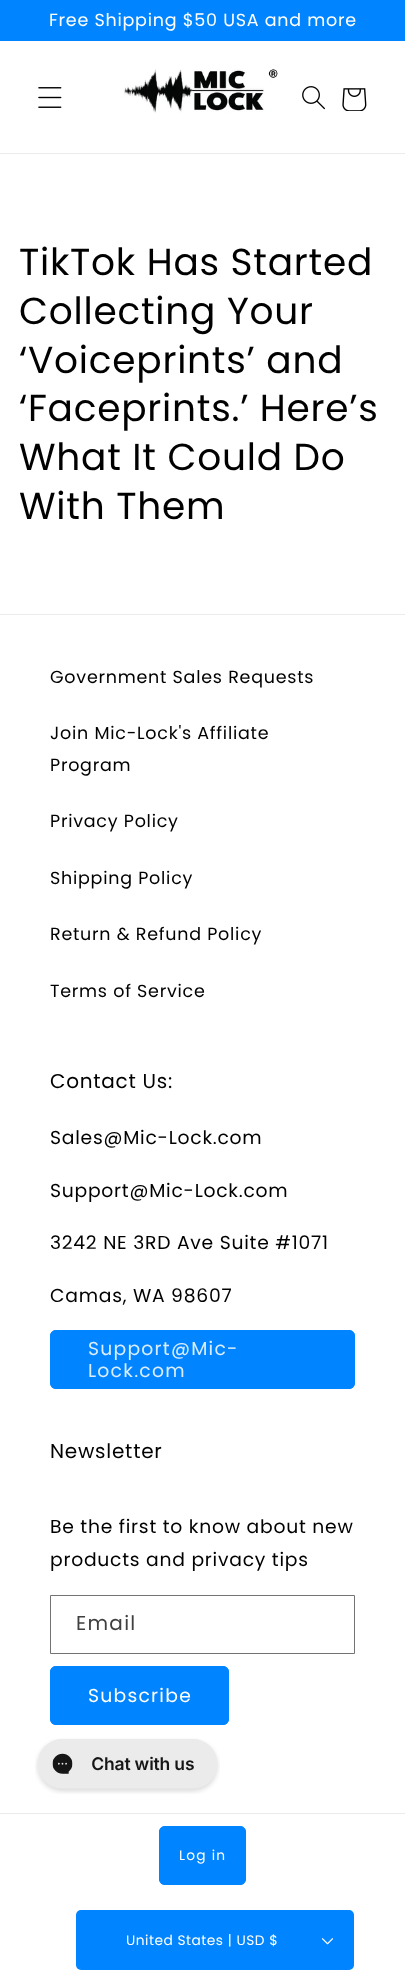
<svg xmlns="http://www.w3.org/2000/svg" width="405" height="1978">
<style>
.a{font:17.5px Poppins;letter-spacing:0.75px;fill:#fff}
.b{font:37.5px Poppins;letter-spacing:0.75px;fill:#000}
.c{font:17.5px Poppins;letter-spacing:0.75px;fill:#000}
.d{font:20px Poppins;letter-spacing:0.75px;fill:#000}
.e{font:18.75px Poppins;letter-spacing:0.75px;fill:#000}
.f{font:18.75px Poppins;letter-spacing:1.25px;fill:#d9edff}
.g{font:20px Poppins;letter-spacing:1.25px;fill:#404040}
.h{font:18.75px Poppins;letter-spacing:1.25px;fill:#fff}
.i{font:13.75px Poppins;letter-spacing:1.25px;fill:#fff}
.j{font:13.75px Poppins;letter-spacing:0.5px;fill:#fff}
</style>
<rect width="100%" height="100%" fill="#fff"/>
<path fill="#0084ff" d="M0 0h405v41H0z"/>
<path fill="#ebebeb" d="M0 153h405v1H0z"/>
<image href="1.png" x="38" y="87" width="24" height="21"/>
<image href="2.png" x="123" y="69" width="155" height="44"/>
<image href="3.png" x="302" y="86" width="23" height="24"/>
<image href="4.png" x="342" y="88" width="25" height="23"/>
<path fill="#ebebeb" d="M0 614h405v1H0z"/>
<rect fill="#0084ff" x="50" y="1330" width="305" height="59" rx="6"/>
<rect fill="none" stroke="#0084ff" x="50.5" y="1330.5" width="304" height="58" rx="5.5"/>
<path fill="none" stroke="#737373" d="M50.5 1595.5h304v58H50.5z"/>
<rect fill="#0084ff" x="50" y="1666" width="179" height="59" rx="6"/>
<rect fill="none" stroke="#0084ff" x="50.5" y="1666.5" width="178" height="58" rx="5.5"/>
<path fill="#ebebeb" d="M0 1813h405v1H0z"/>
<rect fill="#0084ff" x="159" y="1826" width="87" height="59" rx="6"/>
<rect fill="none" stroke="#0084ff" x="159.5" y="1826.5" width="86" height="58" rx="5.5"/>
<rect fill="#0084ff" x="76" y="1910" width="278" height="60" rx="5"/>
<image href="5.png" x="321" y="1938" width="13" height="7"/>
<image href="6.png" x="35" y="1738" width="185" height="56"/>
<text class="a" x="49" y="26">Free Shipping $50 USA and more</text>
<text class="b" x="19" y="275">TikTok Has Started</text>
<text class="b" x="19" y="324">Collecting Your</text>
<text class="b" x="19" y="373">‘Voiceprints’ and</text>
<text class="b" x="19" y="421">‘Faceprints.’ Here’s</text>
<text class="b" x="19" y="470">What It Could Do</text>
<text class="b" x="19" y="519">With Them</text>
<text class="c" x="50" y="683">Government Sales Requests</text>
<text class="c" x="50" y="739">Join Mic-Lock's Affiliate</text>
<text class="c" x="50" y="771">Program</text>
<text class="c" x="50" y="827">Privacy Policy</text>
<text class="c" x="50" y="884">Shipping Policy</text>
<text class="c" x="50" y="940">Return &amp; Refund Policy</text>
<text class="c" x="50" y="997">Terms of Service</text>
<text class="d" x="50" y="1088">Contact Us:</text>
<text class="e" x="50" y="1144">Sales@Mic-Lock.com</text>
<text class="e" x="50" y="1197">Support@Mic-Lock.com</text>
<text class="e" x="50" y="1249">3242 NE 3RD Ave Suite #1071</text>
<text class="e" x="50" y="1302">Camas, WA 98607</text>
<text class="f" x="88" y="1355">Support@Mic-</text>
<text class="f" x="88" y="1377">Lock.com</text>
<text class="d" x="50" y="1458">Newsletter</text>
<text class="e" x="50" y="1533">Be the first to know about new</text>
<text class="e" x="50" y="1566">products and privacy tips</text>
<text class="g" x="76" y="1630">Email</text>
<text class="h" x="88" y="1702">Subscribe</text>
<text class="i" x="179" y="1860">Log in</text>
<text class="j" x="126" y="1945">United States | USD $</text>
</svg>
